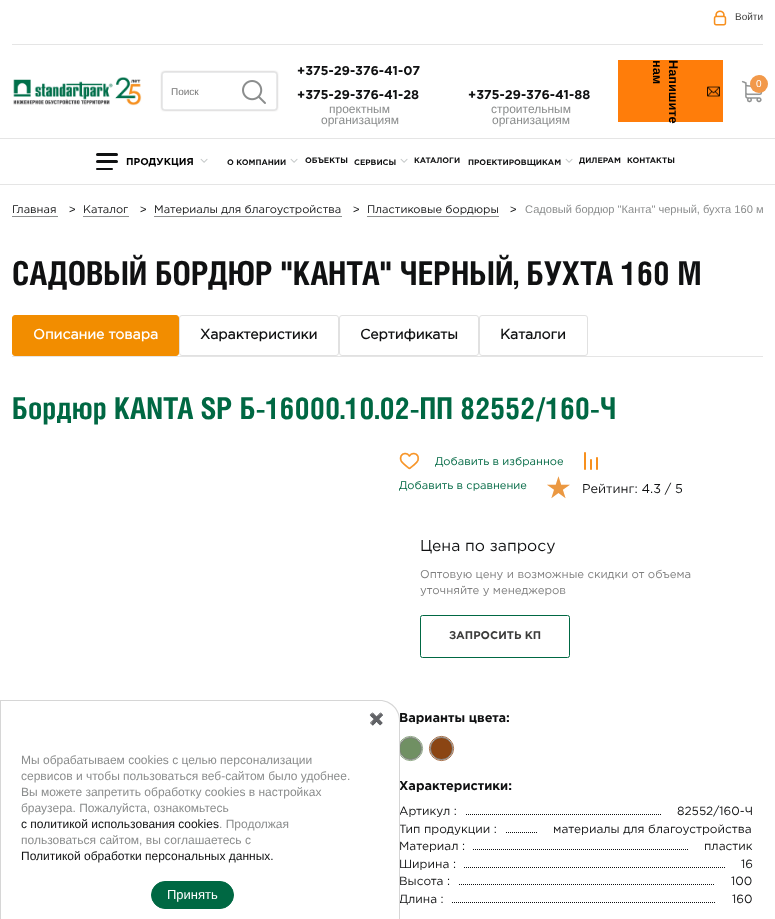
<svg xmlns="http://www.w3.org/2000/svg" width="775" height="919">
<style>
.a{font:10px Liberation Sans;fill:#3c3c3b}
.b{font:bold 12.75px Gotham;fill:#101112}
.c{font:12px Liberation Sans;fill:#8b8d8d}
.d{font:bold 12.75px Liberation Sans;fill:#000}
.e{font:10px Liberation Sans;fill:#fff}
.f{font:10px Liberation Sans;fill:#757575}
.g{font:bold 10px Gotham;fill:#000}
.h{font:bold 8px Gotham;fill:#101112}
.i{font:11.1px Gotham;fill:#101112}
.j{font:11.1px Liberation Sans;fill:#101112}
.k{font:11.1px Liberation Sans;fill:#8b8d8d}
.l{font:bold 32.9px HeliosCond;fill:#101112}
.m{font:bold 14px 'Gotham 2';fill:#fff}
.n{font:bold 14px 'Gotham 2';fill:#101112}
.o{font:bold 30px HeliosCond;fill:#006843}
.p{font:11.1px Gotham;fill:#006843}
.q{font:30px DejaVu Sans;fill:#eb9841}
.r{font:12.75px Gotham;fill:#101112}
.s{font:15.75px Gotham;fill:#101112}
.t{font:11.4px Gotham;fill:#808080}
.u{font:bold 11.1px Gotham;fill:#3c3c3b}
.v{font:11.9px Gotham;fill:#101112}
.w{font:12px Noto Color Emoji;fill:#8b8d8d}
.x{font:12px Liberation Sans;fill:#101112}
.y{font:13px Liberation Sans;fill:#fff}
</style>
<rect width="100%" height="100%" fill="#fff"/>
<path fill="#e5e5e5" d="M12 44h751v1H12z"/>
<image href="1.png" x="713" y="10" width="14" height="16"/>
<image href="2.png" x="13" y="77" width="129" height="29"/>
<path fill="#ff7d0a" d="M618 60h105v62H618z"/>
<image href="3.png" x="707" y="86" width="13" height="11"/>
<image href="4.png" x="741" y="80" width="22" height="23"/>
<circle fill="#f2994a" cx="759" cy="84" r="9"/>
<rect fill="#59565680" filter="blur(1px)" x="162" y="72" width="115" height="38" rx="2.5"/>
<rect fill="#fff" stroke="#e9eaeb" x="162.5" y="72.5" width="114" height="37" rx="2"/>
<image href="5.png" x="242" y="80" width="24" height="24"/>
<path fill="#e5e5e5" d="M0 138h775v1H0z"/>
<path fill="#e5e5e5" d="M0 184h775v1H0z"/>
<rect fill="#101112" x="96" y="153" width="22" height="3" rx="1.5"/>
<rect fill="#101112" x="96" y="160" width="22" height="3" rx="1.5"/>
<rect fill="#101112" x="96" y="168" width="17" height="2" rx="1"/>
<image href="6.png" x="200" y="158" width="8" height="5"/>
<image href="6.png" x="290" y="158" width="8" height="5"/>
<image href="6.png" x="400" y="158" width="8" height="5"/>
<image href="6.png" x="565" y="158" width="8" height="5"/>
<path fill="#8b8d8d" d="M12 216h46v1H12z"/>
<path fill="#8b8d8d" d="M83 216h46v1H83z"/>
<path fill="#8b8d8d" d="M154 216h188v1H154z"/>
<path fill="#8b8d8d" d="M367 216h132v1H367z"/>
<path fill="#e5e5e5" d="M12 356h751v1H12z"/>
<rect fill="#f28d00" stroke="#f28d00" x="12.5" y="315.5" width="166" height="40" rx="2.5"/>
<rect fill="none" stroke="#e1e1e1" x="179.5" y="315.5" width="159" height="40" rx="2.5"/>
<rect fill="none" stroke="#e1e1e1" x="339.5" y="315.5" width="139" height="40" rx="2.5"/>
<rect fill="none" stroke="#e1e1e1" x="479.5" y="315.5" width="108" height="40" rx="2.5"/>
<image href="7.png" x="399" y="452" width="21" height="18"/>
<image href="8.png" x="584" y="452" width="14" height="18"/>
<rect fill="none" stroke="#006843" x="420.5" y="615.5" width="149" height="42" rx="2"/>
<circle fill="none" stroke="#709063" stroke-width="0.8" cx="410.5" cy="748.5" r="12.1"/>
<circle fill="#709063" stroke="#808080" cx="410.5" cy="748.5" r="11"/>
<circle fill="none" stroke="#8b4513" stroke-width="0.8" cx="441.5" cy="748.5" r="12.1"/>
<circle fill="#8b4513" stroke="#808080" cx="441.5" cy="748.5" r="11"/>
<path fill="none" stroke="#101112" stroke-dasharray="1 1" d="M466 814.5h195"/>
<path fill="none" stroke="#101112" stroke-dasharray="1 1" d="M506 832.5h31"/>
<path fill="none" stroke="#101112" stroke-dasharray="1 1" d="M473 849.5h215"/>
<path fill="none" stroke="#101112" stroke-dasharray="1 1" d="M464 867.5h261"/>
<path fill="none" stroke="#101112" stroke-dasharray="1 1" d="M459 884.5h256"/>
<path fill="none" stroke="#101112" stroke-dasharray="1 1" d="M452 902.5h264"/>
<text class="a" x="735" y="20">Войти</text>
<text class="b" x="297" y="75">+375-29-376-41-07</text>
<text class="b" x="297" y="99">+375-29-376-41-28</text>
<text class="c" x="329" y="113">проектным</text>
<text class="c" x="321" y="124">организациям</text>
<text class="d" x="653" y="60" transform="rotate(90 653 60)">нам</text>
<text class="d" x="669" y="60" transform="rotate(90 669 60)">Напишите</text>
<text class="e" x="756" y="87">0</text>
<text class="f" x="171" y="95">Поиск</text>
<text class="b" x="468" y="99">+375-29-376-41-88</text>
<text class="c" x="491" y="113">строительным</text>
<text class="c" x="492" y="124">организациям</text>
<text class="g" x="126" y="165">ПРОДУКЦИЯ</text>
<text class="h" x="227" y="165">О КОМПАНИИ</text>
<text class="h" x="305" y="163">ОБЪЕКТЫ</text>
<text class="h" x="354" y="165">СЕРВИСЫ</text>
<text class="h" x="414" y="163">КАТАЛОГИ</text>
<text class="h" x="468" y="165">ПРОЕКТИРОВЩИКАМ</text>
<text class="h" x="579" y="163">ДИЛЕРАМ</text>
<text class="h" x="627" y="163">КОНТАКТЫ</text>
<text class="i" x="12" y="213">Главная</text>
<text class="j" x="69" y="213">&gt;</text>
<text class="i" x="83" y="213">Каталог</text>
<text class="j" x="140" y="213">&gt;</text>
<text class="i" x="154" y="213">Материалы для благоустройства</text>
<text class="j" x="353" y="213">&gt;</text>
<text class="i" x="367" y="213">Пластиковые бордюры</text>
<text class="j" x="510" y="213">&gt;</text>
<text class="k" x="525" y="213">Садовый бордюр "Канта" черный, бухта 160 м</text>
<text class="l" x="12" y="285">САДОВЫЙ БОРДЮР "КАНТА" ЧЕРНЫЙ, БУХТА 160 М</text>
<text class="m" x="33" y="339">Описание товара</text>
<text class="n" x="200" y="339">Характеристики</text>
<text class="n" x="360" y="339">Сертификаты</text>
<text class="n" x="500" y="339">Каталоги</text>
<text class="o" x="12" y="419">Бордюр KANTA SP Б-16000.10.02-ПП 82552/160-Ч</text>
<text class="p" x="435" y="465">Добавить в избранное</text>
<text class="p" x="399" y="489">Добавить в сравнение</text>
<text class="q" x="545" y="498">★</text>
<text class="r" x="582" y="493">Рейтинг: 4.3 / 5</text>
<text class="s" x="420" y="551">Цена по запросу</text>
<text class="t" x="420" y="578">Оптовую цену и возможные скидки от объема</text>
<text class="t" x="420" y="594">уточняйте у менеджеров</text>
<text class="u" x="449" y="639">ЗАПРОСИТЬ КП</text>
<text class="b" x="399" y="722">Варианты цвета:</text>
<text class="b" x="399" y="790">Характеристики:</text>
<text class="v" x="399" y="815">Артикул :</text>
<text class="v" x="677" y="815">82552/160-Ч</text>
<text class="v" x="399" y="833">Тип продукции :</text>
<text class="v" x="553" y="833">материалы для благоустройства</text>
<text class="v" x="399" y="850">Материал :</text>
<text class="v" x="704" y="850">пластик</text>
<text class="v" x="399" y="868">Ширина :</text>
<text class="v" x="741" y="868">16</text>
<text class="v" x="399" y="885">Высота :</text>
<text class="v" x="731" y="885">100</text>
<text class="v" x="399" y="903">Длина :</text>
<text class="v" x="732" y="903">160</text>
<path fill="#fff" d="M0 700h380c11 0 20 9 20 20v199h-400z"/>
<path fill="#d6d6d6" fill-rule="evenodd" d="M0 700h380c11 0 20 9 20 20v199h-400zm1 1h379c10 0 19 9 19 19v199h-398z"/>
<text class="w" x="369" y="723">✖️</text>
<text class="c" x="21" y="764">Мы обрабатываем cookies с целью персонализации</text>
<text class="c" x="21" y="780">сервисов и чтобы пользоваться веб-сайтом было удобнее.</text>
<text class="c" x="21" y="796">Вы можете запретить обработку сookies в настройках</text>
<text class="c" x="21" y="812">браузера. Пожалуйста, ознакомьтесь</text>
<text class="x" x="21" y="828">с политикой использования cookies</text>
<text class="c" x="219" y="828">. Продолжая</text>
<text class="c" x="21" y="844">пользоваться сайтом, вы соглашаетесь с</text>
<text class="x" x="21" y="860">Политикой обработки персональных данных.</text>
<rect fill="#006843" stroke="#006843" x="151.5" y="881.5" width="82" height="27" rx="13.5"/>
<text class="y" x="167" y="899">Принять</text>
</svg>
